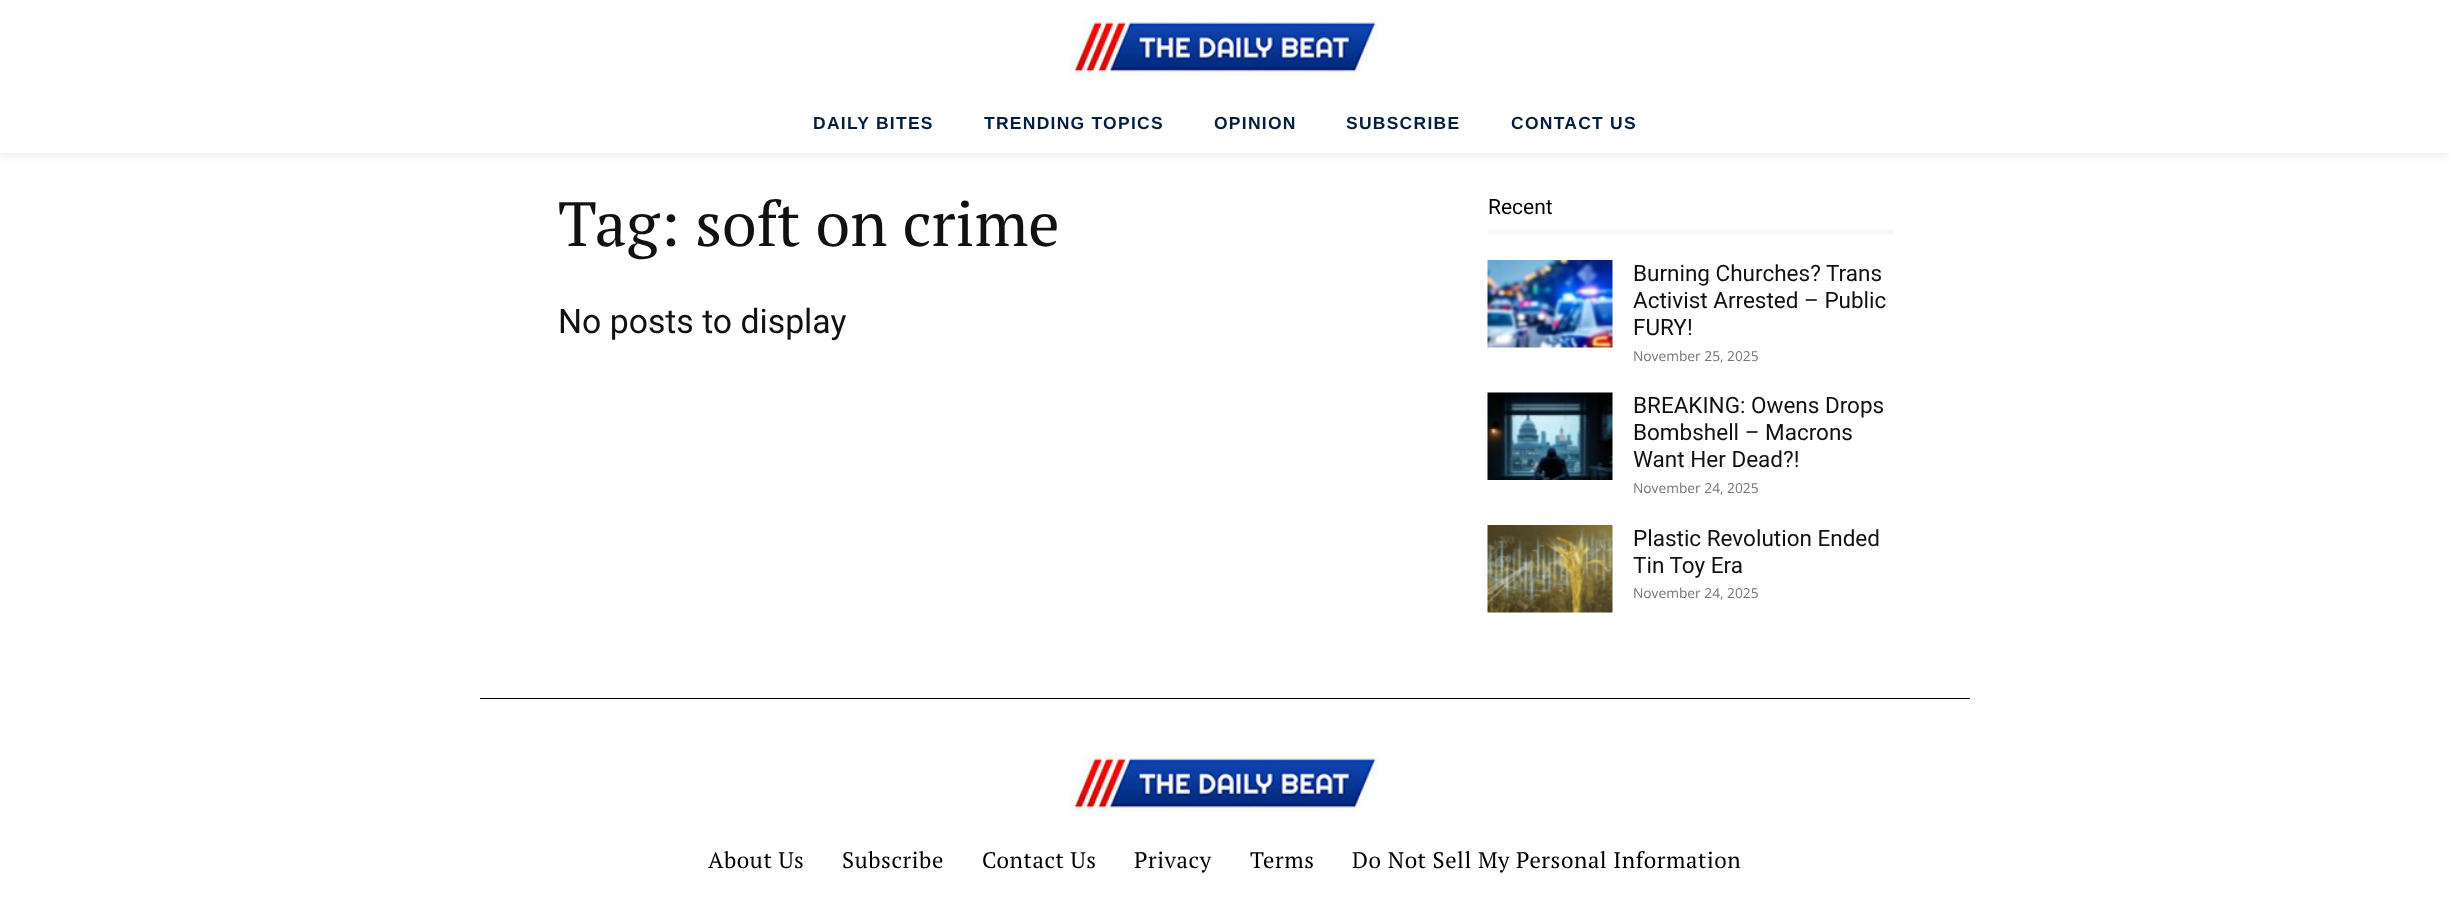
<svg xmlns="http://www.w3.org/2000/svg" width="2450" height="913">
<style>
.a{font:bold 17.5px Liberation Sans;letter-spacing:1.25px;fill:#041f3d}
.b{font:62.5px PT Serif;fill:#111}
.c{font:33.75px Roboto;fill:#111}
.d{font:21px Roboto;fill:#000}
.e{font:22.5px Roboto;fill:#111}
.f{font:13.75px Open Sans;fill:#767676}
.g{font:22.5px PT Serif;letter-spacing:0.6px;fill:#000}
</style>
<rect width="100%" height="100%" fill="#fff"/>
<path fill="#0000001f" filter="blur(6px)" d="M0 0h2450v153H0z"/>
<path fill="#fff" d="M0 0h2450v153H0z"/>
<image href="1.png" x="1069" y="18" width="310" height="62"/>
<path fill="#f5f5f5" d="M1488 230h405v4H1488z"/>
<image href="2.png" x="1487" y="260" width="126" height="88"/>
<image href="3.png" x="1487" y="392" width="126" height="88"/>
<image href="4.png" x="1487" y="525" width="126" height="88"/>
<path fill="#000" d="M480 698h1490v1H480z"/>
<image href="5.png" x="1069" y="755" width="310" height="61"/>
<text class="a" x="813" y="129">DAILY BITES</text>
<text class="a" x="984" y="129">TRENDING TOPICS</text>
<text class="a" x="1214" y="129">OPINION</text>
<text class="a" x="1346" y="129">SUBSCRIBE</text>
<text class="a" x="1511" y="129">CONTACT US</text>
<text class="b" x="558" y="246">Tag: soft on crime</text>
<text class="c" x="558" y="333">No posts to display</text>
<text class="d" x="1488" y="214">Recent</text>
<text class="e" x="1633" y="281">Burning Churches? Trans</text>
<text class="e" x="1633" y="308">Activist Arrested – Public</text>
<text class="e" x="1633" y="335">FURY!</text>
<text class="f" x="1633" y="361">November 25, 2025</text>
<text class="e" x="1633" y="413">BREAKING: Owens Drops</text>
<text class="e" x="1633" y="440">Bombshell – Macrons</text>
<text class="e" x="1633" y="467">Want Her Dead?!</text>
<text class="f" x="1633" y="493">November 24, 2025</text>
<text class="e" x="1633" y="546">Plastic Revolution Ended</text>
<text class="e" x="1633" y="573">Tin Toy Era</text>
<text class="f" x="1633" y="598">November 24, 2025</text>
<text class="g" x="708" y="868">About Us</text>
<text class="g" x="842" y="868">Subscribe</text>
<text class="g" x="982" y="868">Contact Us</text>
<text class="g" x="1134" y="868">Privacy</text>
<text class="g" x="1250" y="868">Terms</text>
<text class="g" x="1352" y="868">Do Not Sell My Personal Information</text>
</svg>
